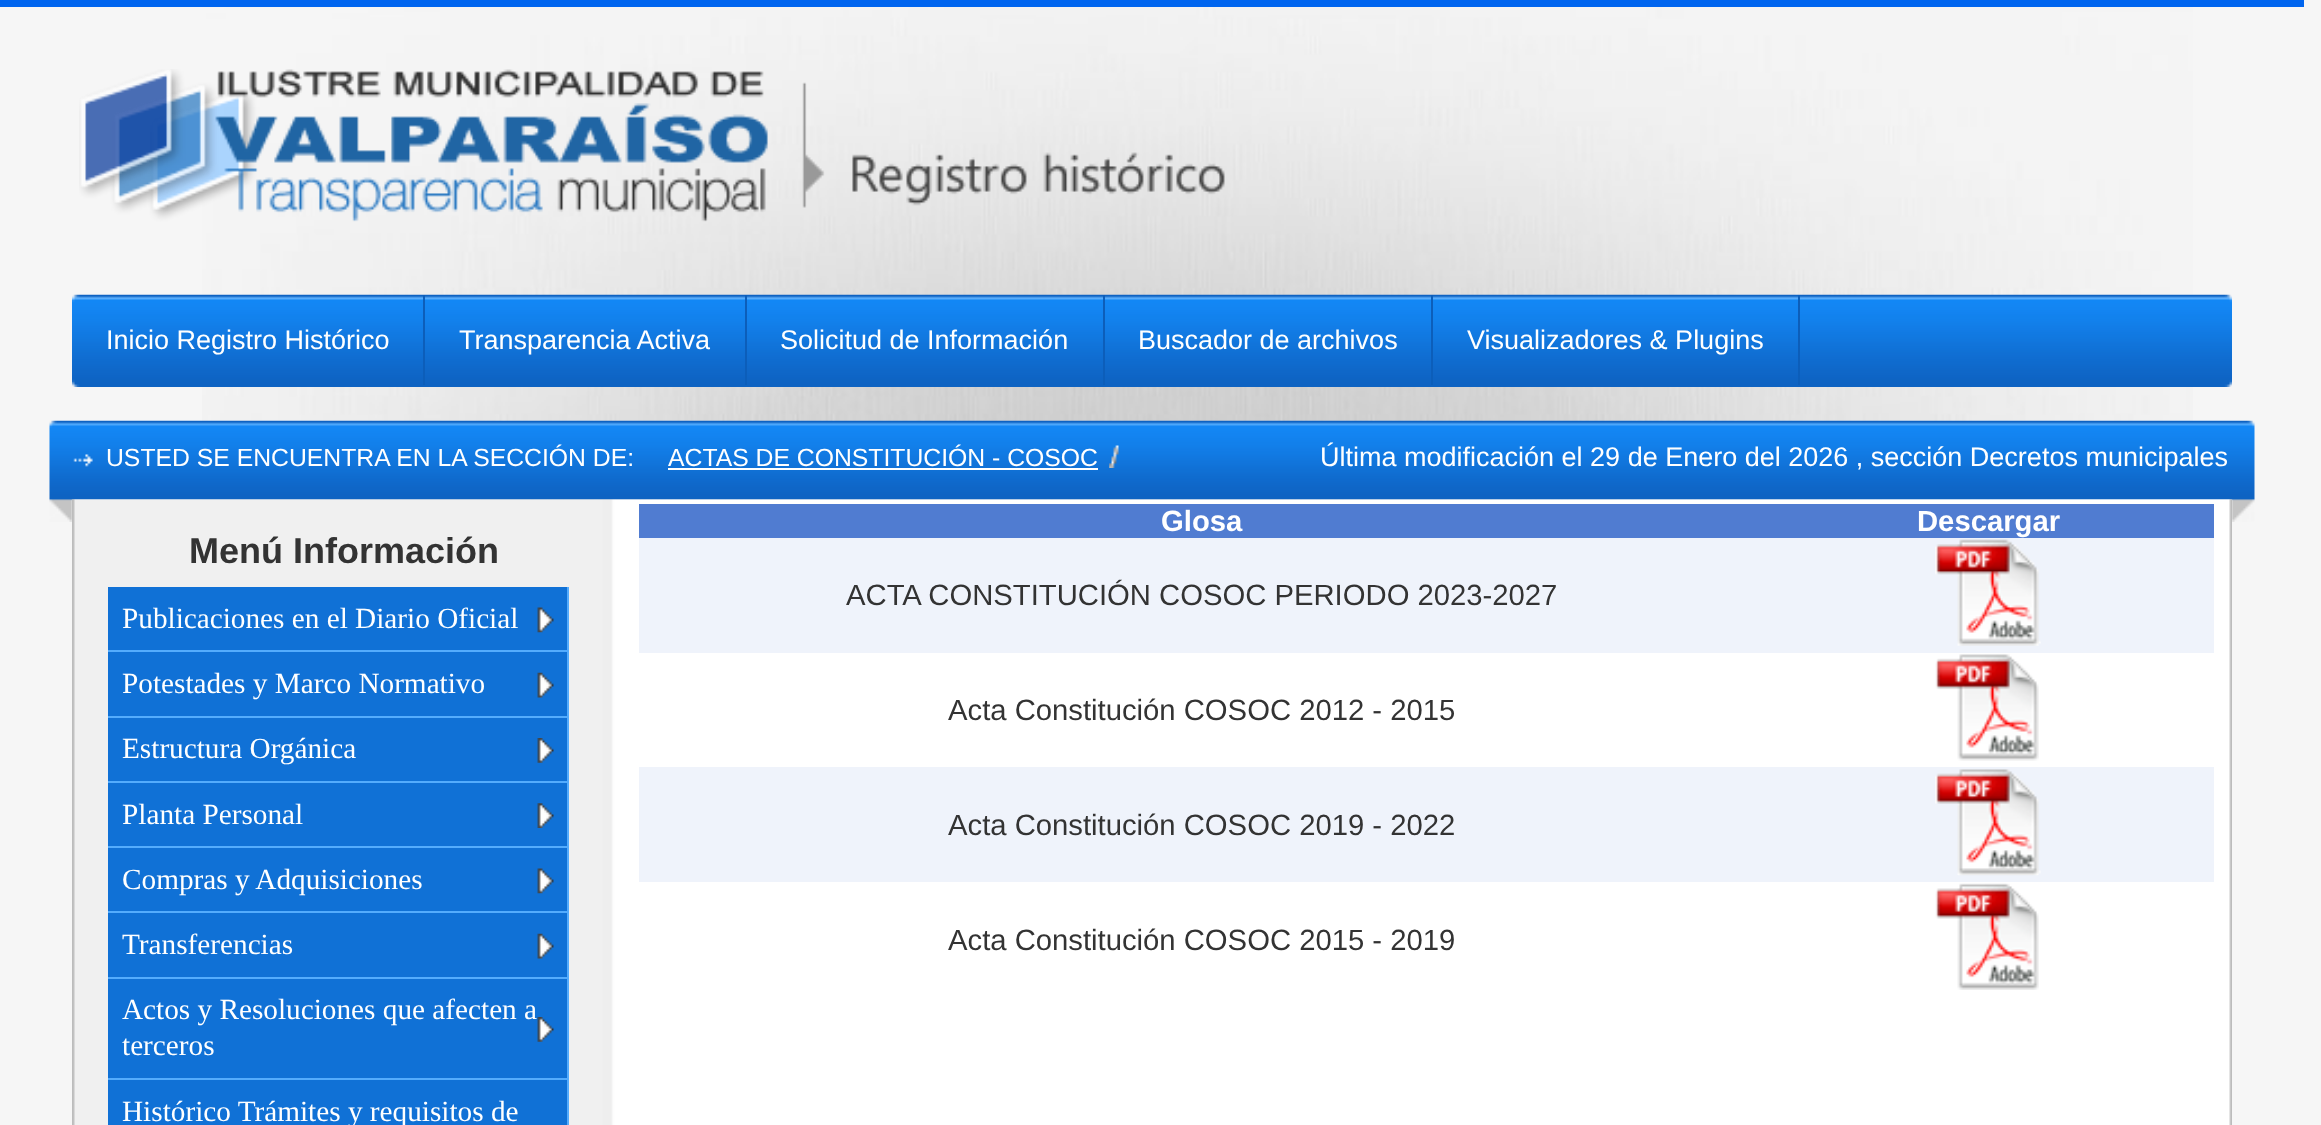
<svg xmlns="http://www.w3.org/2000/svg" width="2321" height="1125">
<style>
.a{font:27px Liberation Sans;fill:#fff}
.b{font:24.75px Liberation Sans;fill:#fff}
.c{font:bold 36px Liberation Sans;fill:#333}
.d{font:29.25px Liberation Serif;fill:#fff}
.e{font:bold 29.25px Liberation Sans;fill:#fff}
.f{font:29.25px Liberation Sans;fill:#333}
</style>
<rect width="100%" height="100%" fill="#f6f6f6"/>
<image href="1.png" x="202" y="7" width="1991" height="493"/>
<path fill="#0065ef" d="M0 0h2304v7H0z"/>
<image href="2.png" x="79" y="69" width="1146" height="153"/>
<image href="3.png" x="72" y="294" width="2160" height="93"/>
<path fill="#0c5eba" d="M423 295h2v90H423z"/>
<path fill="#0c5eba" d="M745 295h2v90H745z"/>
<path fill="#0c5eba" d="M1103 295h2v90H1103z"/>
<path fill="#0c5eba" d="M1431 295h2v90H1431z"/>
<path fill="#0c5eba" d="M1798 295h2v90H1798z"/>
<image href="4.png" x="49" y="420" width="2206" height="102"/>
<image href="5.png" x="1109" y="445" width="10" height="23"/>
<path fill="#fff" d="M668 468h430v2H668z"/>
<image href="6.png" x="72" y="499" width="2160" height="626"/>
<path fill="#1071d6" d="M108 587h459v129H108z"/>
<image href="7.png" x="537" y="607" width="17" height="26"/>
<path fill="#54acfd" d="M567 587h2v538H567z"/>
<path fill="#54acfd" d="M108 650h461v2H108z"/>
<image href="8.png" x="537" y="672" width="17" height="26"/>
<path fill="#54acfd" d="M108 716h461v2H108z"/>
<path fill="#1071d6" d="M108 718h459v63H108z"/>
<image href="9.png" x="537" y="738" width="17" height="25"/>
<path fill="#54acfd" d="M108 781h461v2H108z"/>
<path fill="#1071d6" d="M108 783h459v63H108z"/>
<image href="10.png" x="537" y="803" width="17" height="25"/>
<path fill="#54acfd" d="M108 846h461v2H108z"/>
<path fill="#1071d6" d="M108 848h459v129H108z"/>
<image href="7.png" x="537" y="868" width="17" height="26"/>
<path fill="#54acfd" d="M108 911h461v2H108z"/>
<image href="8.png" x="537" y="933" width="17" height="26"/>
<path fill="#54acfd" d="M108 977h461v2H108z"/>
<path fill="#1071d6" d="M108 979h459v99H108z"/>
<image href="9.png" x="537" y="1017" width="17" height="25"/>
<path fill="#54acfd" d="M108 1078h461v2H108z"/>
<path fill="#1071d6" d="M108 1080h459v45H108z"/>
<path fill="#507cd1" d="M639 504h1575v34H639z"/>
<path fill="#eff3fb" d="M639 538h1575v115H639z"/>
<image href="11.png" x="1935" y="539" width="106" height="107"/>
<image href="12.png" x="1935" y="654" width="104" height="107"/>
<path fill="#eff3fb" d="M639 767h1575v115H639z"/>
<image href="13.png" x="1935" y="769" width="106" height="107"/>
<image href="14.png" x="1935" y="883" width="104" height="107"/>
<text class="a" x="106" y="349">Inicio Registro Histórico</text>
<text class="a" x="459" y="349">Transparencia Activa</text>
<text class="a" x="780" y="349">Solicitud de Información</text>
<text class="a" x="1138" y="349">Buscador de archivos</text>
<text class="a" x="1467" y="349">Visualizadores &amp; Plugins</text>
<text class="a" x="1320" y="466">Última modificación el 29 de Enero del 2026 , sección Decretos municipales</text>
<text class="b" x="106" y="466">USTED SE ENCUENTRA EN LA SECCIÓN DE:</text>
<text class="b" x="668" y="466">ACTAS DE CONSTITUCIÓN - COSOC</text>
<text class="c" x="189" y="563">Menú Información</text>
<text class="d" x="122" y="628">Publicaciones en el Diario Oficial</text>
<text class="d" x="122" y="693">Potestades y Marco Normativo</text>
<text class="d" x="122" y="758">Estructura Orgánica</text>
<text class="d" x="122" y="824">Planta Personal</text>
<text class="d" x="122" y="889">Compras y Adquisiciones</text>
<text class="d" x="122" y="954">Transferencias</text>
<text class="d" x="122" y="1019">Actos y Resoluciones que afecten a</text>
<text class="d" x="122" y="1055">terceros</text>
<text class="d" x="122" y="1121">Histórico Trámites y requisitos de</text>
<text class="e" x="1161" y="531">Glosa</text>
<text class="e" x="1917" y="531">Descargar</text>
<text class="f" x="846" y="605">ACTA CONSTITUCIÓN COSOC PERIODO 2023-2027</text>
<text class="f" x="948" y="720">Acta Constitución COSOC 2012 - 2015</text>
<text class="f" x="948" y="835">Acta Constitución COSOC 2019 - 2022</text>
<text class="f" x="948" y="950">Acta Constitución COSOC 2015 - 2019</text>
</svg>
